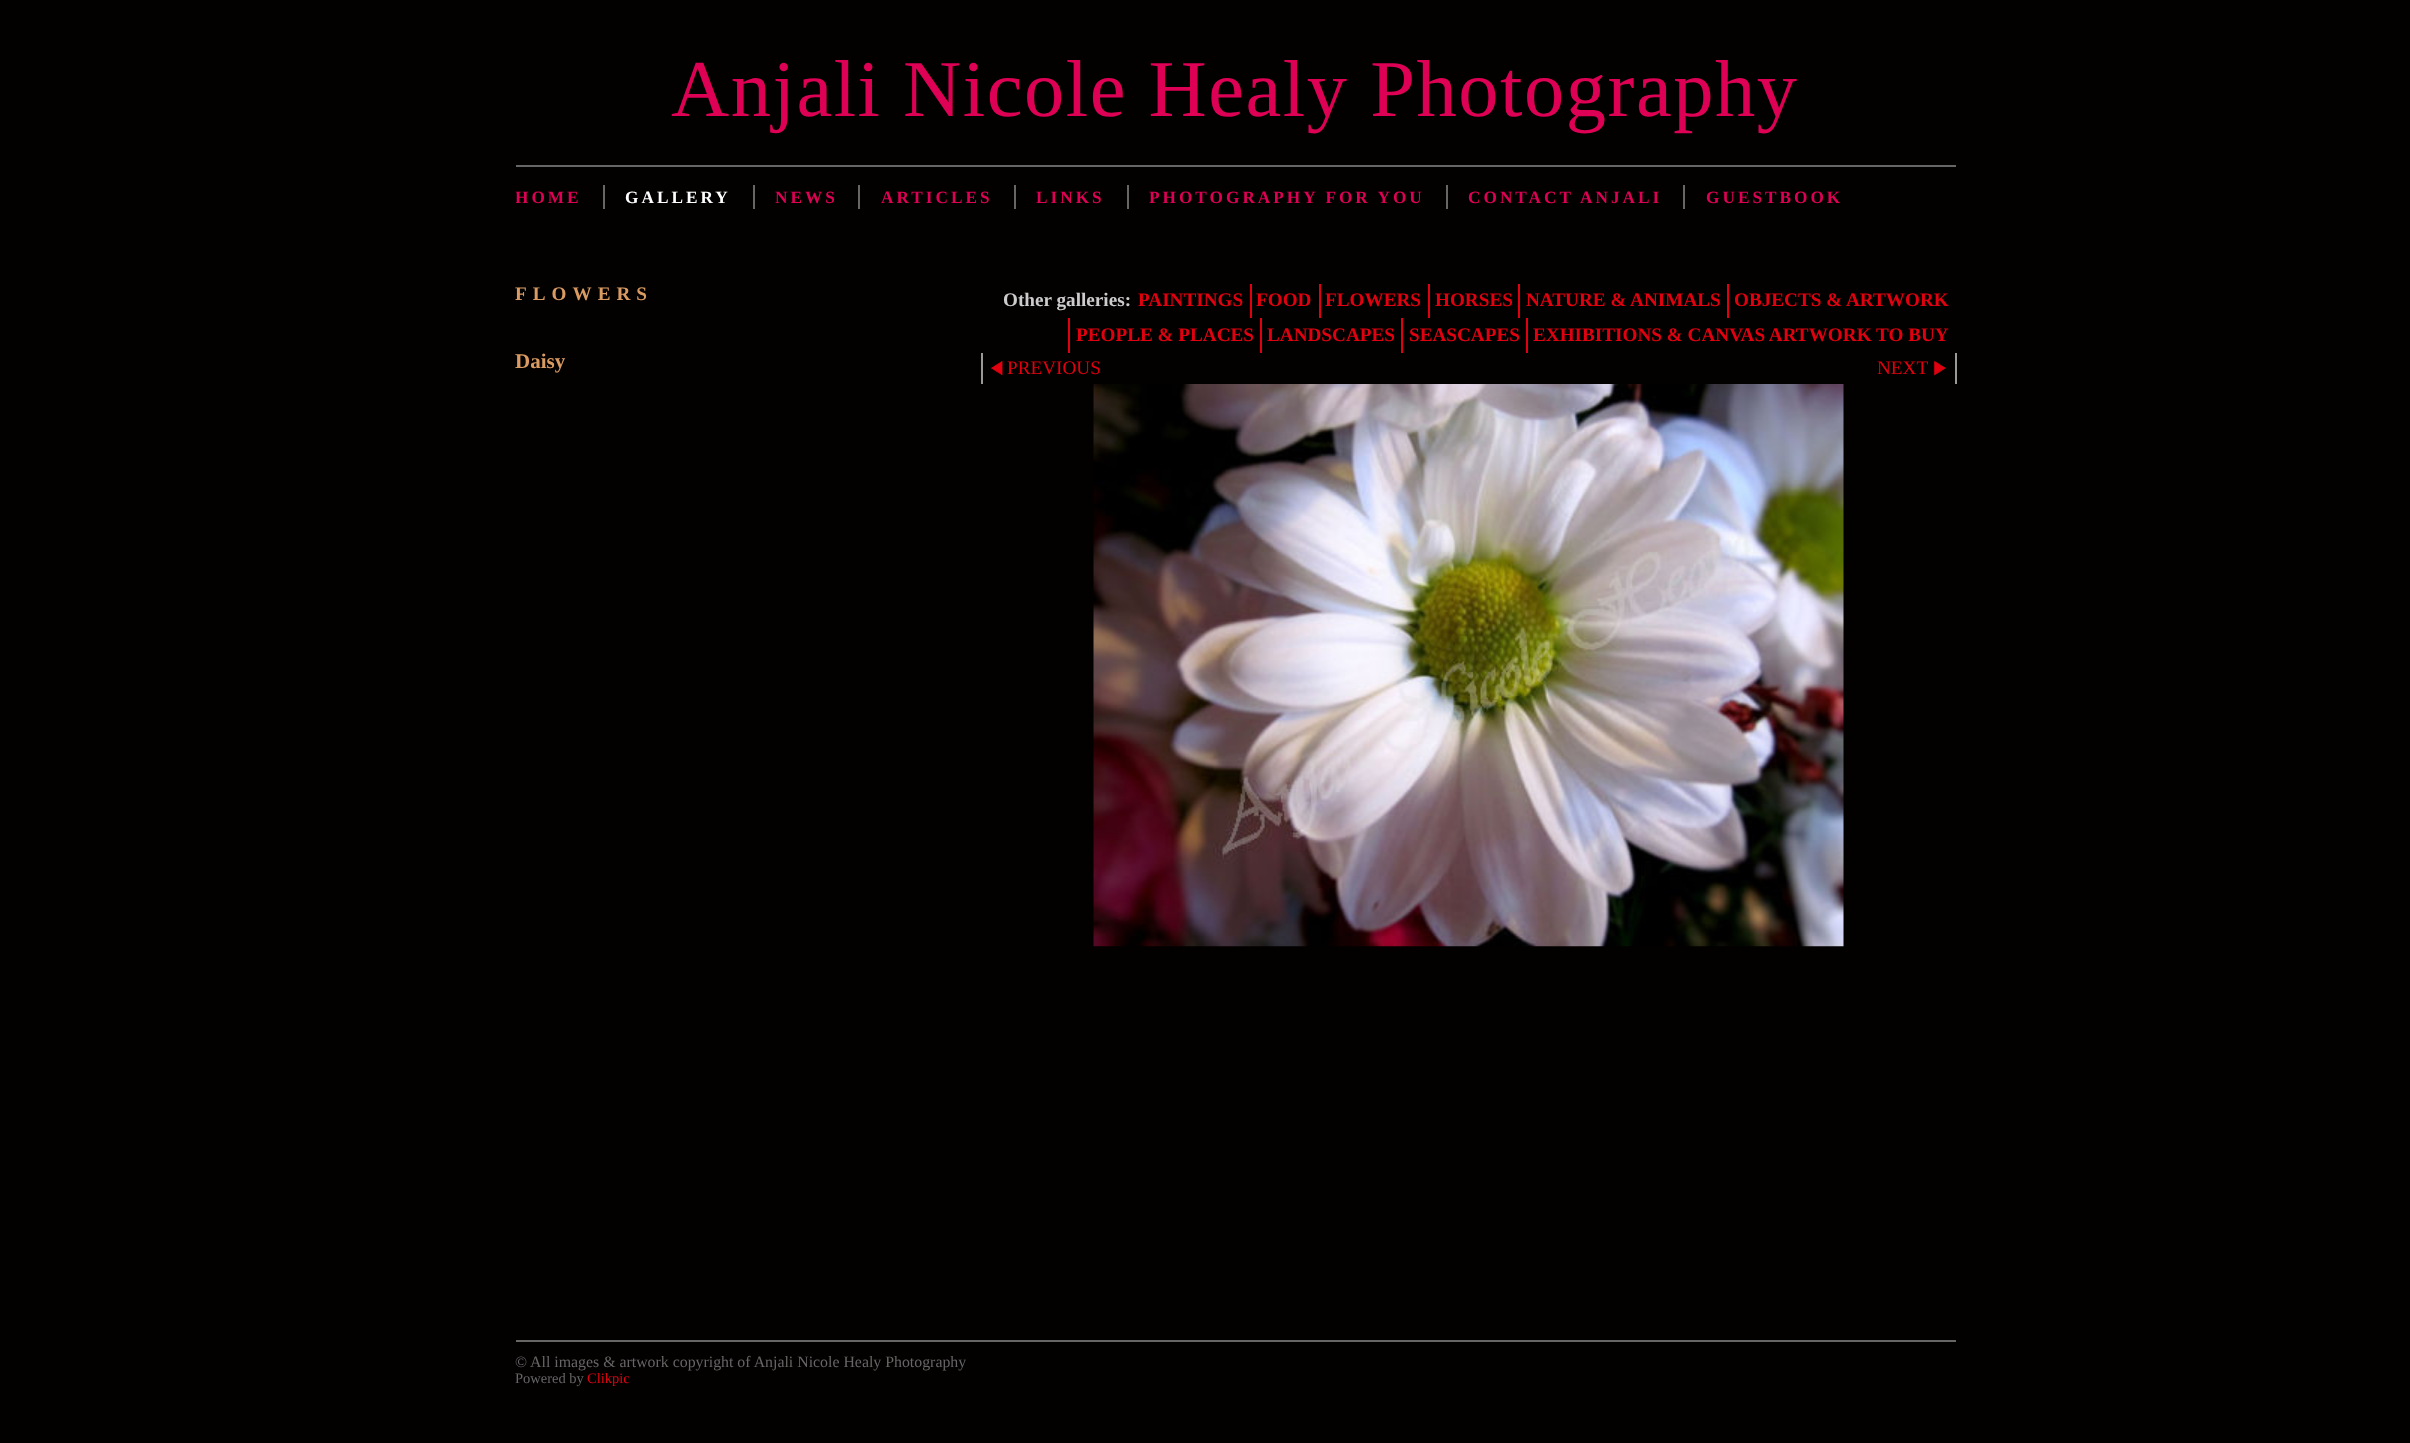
<svg xmlns="http://www.w3.org/2000/svg" width="2410" height="1443">
<style>
.a{font:80.6px Liberation Serif;letter-spacing:1.5px;fill:#de0055}
.b{font:bold 17.25px Liberation Serif;letter-spacing:3px;fill:#de0055}
.c{font:bold 17.25px Liberation Serif;letter-spacing:3px;fill:#fff}
.d{font:bold 19.2px Liberation Serif;letter-spacing:6px;fill:#da9b62}
.e{font:bold 21px Liberation Serif;fill:#da9b62}
.f{font:bold 19.2px Liberation Serif;fill:#ccc}
.g{font:bold 19.2px Liberation Serif;fill:#e0000f}
.h{font:19.2px Liberation Serif;fill:#e0000f}
.i{font:15.85px Liberation Serif;fill:#666}
.j{font:14.5px Liberation Serif;fill:#666}
.k{font:14.5px Liberation Serif;fill:#e0000f}
</style>
<defs>
<clipPath id="clip1"><path d="M516 185h1440v24H516z"/></clipPath>
</defs>
<rect width="100%" height="100%" fill="#030000"/>
<path fill="#666" d="M516 165h1440v2H516z"/>
<path fill="#666" d="M603 185h2v24H603z"/>
<path fill="#666" d="M753 185h2v24H753z"/>
<path fill="#666" d="M858 185h2v24H858z"/>
<path fill="#666" d="M1014 185h2v24H1014z"/>
<path fill="#666" d="M1127 185h2v24H1127z"/>
<path fill="#666" d="M1446 185h2v24H1446z"/>
<path fill="#666" d="M1683 185h2v24H1683z"/>
<path fill="#e0000f" d="M1250 284h2v34H1250z"/>
<path fill="#e0000f" d="M1319 284h2v34H1319z"/>
<path fill="#e0000f" d="M1428 284h2v34H1428z"/>
<path fill="#e0000f" d="M1518 284h2v34H1518z"/>
<path fill="#e0000f" d="M1727 284h2v34H1727z"/>
<path fill="#e0000f" d="M1068 318h2v35H1068z"/>
<path fill="#e0000f" d="M1260 318h2v35H1260z"/>
<path fill="#e0000f" d="M1401 318h2v35H1401z"/>
<path fill="#e0000f" d="M1526 318h2v35H1526z"/>
<path fill="#999" d="M981 353h2v31H981z"/>
<image href="1.png" x="991" y="361" width="12" height="15"/>
<path fill="#999" d="M1955 353h2v31H1955z"/>
<image href="2.png" x="1934" y="361" width="12" height="15"/>
<image href="3.png" x="1093" y="384" width="751" height="563"/>
<path fill="#666" d="M516 1340h1440v2H516z"/>
<text class="a" x="671" y="116">Anjali Nicole Healy Photography</text>
<g clip-path="url(#clip1)">
<text class="b" x="515" y="203">HOME</text>
</g>
<text class="c" x="625" y="203">GALLERY</text>
<text class="b" x="775" y="203">NEWS</text>
<text class="b" x="881" y="203">ARTICLES</text>
<text class="b" x="1036" y="203">LINKS</text>
<text class="b" x="1149" y="203">PHOTOGRAPHY FOR YOU</text>
<text class="b" x="1468" y="203">CONTACT ANJALI</text>
<text class="b" x="1706" y="203">GUESTBOOK</text>
<text class="d" x="515" y="300">FLOWERS</text>
<text class="e" x="515" y="368">Daisy</text>
<text class="f" x="1003" y="306">Other galleries:</text>
<text class="g" x="1138" y="306">PAINTINGS</text>
<text class="g" x="1256" y="306">FOOD</text>
<text class="g" x="1325" y="306">FLOWERS</text>
<text class="g" x="1435" y="306">HORSES</text>
<text class="g" x="1526" y="306">NATURE &amp; ANIMALS</text>
<text class="g" x="1734" y="306">OBJECTS &amp; ARTWORK</text>
<text class="g" x="1076" y="341">PEOPLE &amp; PLACES</text>
<text class="g" x="1267" y="341">LANDSCAPES</text>
<text class="g" x="1409" y="341">SEASCAPES</text>
<text class="g" x="1533" y="341">EXHIBITIONS &amp; CANVAS ARTWORK TO BUY</text>
<text class="h" x="1007" y="374">PREVIOUS</text>
<text class="h" x="1877" y="374">NEXT</text>
<text class="i" x="515" y="1367">© All images &amp; artwork copyright of Anjali Nicole Healy Photography</text>
<text class="j" x="515" y="1383">Powered by</text>
<text class="k" x="587" y="1383">Clikpic</text>
</svg>
